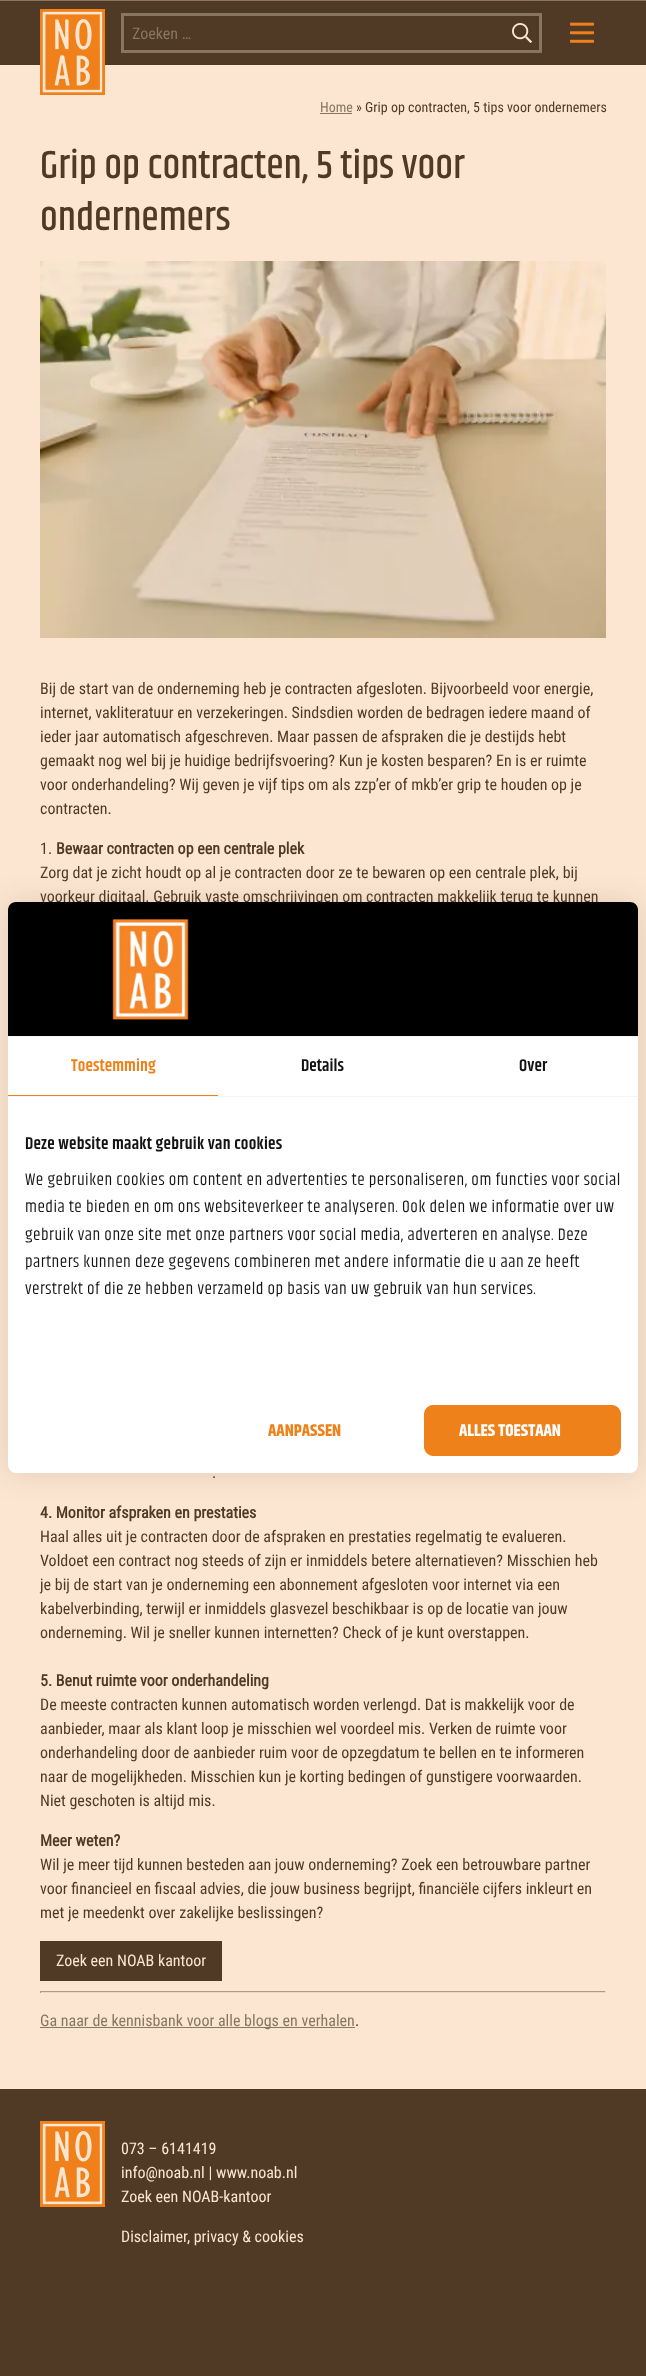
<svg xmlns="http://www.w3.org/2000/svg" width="646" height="2376">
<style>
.a{font:16px Roboto Condensed;fill:#707375}
.b{font:14px Roboto Condensed;fill:#707375}
.c{font:14px Roboto Condensed;fill:#282828}
.d{font:500 40px Khand;fill:#282828}
.e{font:16px Roboto Condensed;fill:#282828}
.f{font:bold 16px Roboto Condensed;fill:#282828}
.g{font:16px Roboto Condensed;fill:#fff}
.h{font:bold 17px Khand;fill:#fff}
.i{font:bold 17px Khand;fill:#ef811b}
.j{font:17px Khand;letter-spacing:0.5px;fill:#141414}
.k{font:600 17px Khand;letter-spacing:0.25px;fill:#141414}
.l{font:600 17px Khand;letter-spacing:0.1px;fill:#141414}
.m{font:600 17px Khand;letter-spacing:0.1px;fill:#ef811b}
</style>
<rect width="100%" height="100%" fill="#fff"/>
<path fill="#282828" d="M0 1h646v64H0z"/>
<path fill="#707375" d="M0 0h646v1H0z"/>
<image href="1.png" x="40" y="9" width="65" height="86"/>
<path fill="none" stroke="#707375" stroke-width="3" d="M122.5 14.5h418v37H122.5z"/>
<image href="2.png" x="512" y="23" width="20" height="20"/>
<image href="3.png" x="570" y="22" width="24" height="21"/>
<path fill="#707375" d="M320 113h32v1H320z"/>
<image href="4.png" x="40" y="261" width="566" height="377"/>
<path fill="#282828" d="M40 1941h182v40H40z"/>
<path fill="#9f9f9f" d="M40 1991h566v1H40z"/>
<path fill="#eee" d="M605 1991h1v2H605z"/>
<path fill="#eee" d="M40 1992h566v1H40z"/>
<path fill="#9f9f9f" d="M40 1991h1v2H40z"/>
<path fill="#707375" d="M40 2027h315v1H40z"/>
<rect fill="#1d232726" filter="blur(15px)" x="8" y="902" width="630" height="571" rx="8"/>
<path fill="#282828" d="M0 2089h646v287H0z"/>
<image href="6.png" x="40" y="2121" width="65" height="86"/>
<text class="a" x="132" y="39">Zoeken …</text>
<text class="b" x="320" y="112">Home</text>
<text class="c" x="356" y="112">» Grip op contracten, 5 tips voor ondernemers</text>
<text class="d" x="40" y="178">Grip op contracten, 5 tips voor</text>
<text class="d" x="40" y="230">ondernemers</text>
<text class="e" x="40" y="694">Bij de start van de onderneming heb je contracten afgesloten. Bijvoorbeeld voor energie,</text>
<text class="e" x="40" y="718">internet, vakliteratuur en verzekeringen. Sindsdien worden de bedragen iedere maand of</text>
<text class="e" x="40" y="742">ieder jaar automatisch afgeschreven. Maar passen de afspraken die je destijds hebt</text>
<text class="e" x="40" y="766">gemaakt nog wel bij je huidige bedrijfsvoering? Kun je kosten besparen? En is er ruimte</text>
<text class="e" x="40" y="790">voor onderhandeling? Wij geven je vijf tips om als zzp’er of mkb’er grip te houden op je</text>
<text class="e" x="40" y="814">contracten.</text>
<text class="e" x="40" y="854">1.</text>
<text class="f" x="56" y="854">Bewaar contracten op een centrale plek</text>
<text class="e" x="40" y="878">Zorg dat je zicht houdt op al je contracten door ze te bewaren op een centrale plek, bij</text>
<text class="e" x="40" y="902">voorkeur digitaal. Gebruik vaste omschrijvingen om contracten makkelijk terug te kunnen</text>
<text class="e" x="212" y="1478">.</text>
<text class="f" x="40" y="1518">4. Monitor afspraken en prestaties</text>
<text class="e" x="40" y="1542">Haal alles uit je contracten door de afspraken en prestaties regelmatig te evalueren.</text>
<text class="e" x="40" y="1566">Voldoet een contract nog steeds of zijn er inmiddels betere alternatieven? Misschien heb</text>
<text class="e" x="40" y="1590">je bij de start van je onderneming een abonnement afgesloten voor internet via een</text>
<text class="e" x="40" y="1614">kabelverbinding, terwijl er inmiddels glasvezel beschikbaar is op de locatie van jouw</text>
<text class="e" x="40" y="1638">onderneming. Wil je sneller kunnen internetten? Check of je kunt overstappen.</text>
<text class="f" x="40" y="1686">5. Benut ruimte voor onderhandeling</text>
<text class="e" x="40" y="1710">De meeste contracten kunnen automatisch worden verlengd. Dat is makkelijk voor de</text>
<text class="e" x="40" y="1734">aanbieder, maar als klant loop je misschien wel voordeel mis. Verken de ruimte voor</text>
<text class="e" x="40" y="1758">onderhandeling door de aanbieder ruim voor de opzegdatum te bellen en te informeren</text>
<text class="e" x="40" y="1782">naar de mogelijkheden. Misschien kun je korting bedingen of gunstigere voorwaarden.</text>
<text class="e" x="40" y="1806">Niet geschoten is altijd mis.</text>
<text class="f" x="40" y="1846">Meer weten?</text>
<text class="e" x="40" y="1870">Wil je meer tijd kunnen besteden aan jouw onderneming? Zoek een betrouwbare partner</text>
<text class="e" x="40" y="1894">voor financieel en fiscaal advies, die jouw business begrijpt, financiële cijfers inkleurt en</text>
<text class="e" x="40" y="1918">met je meedenkt over zakelijke beslissingen?</text>
<text class="g" x="56" y="1966">Zoek een NOAB kantoor</text>
<text class="a" x="40" y="2026">Ga naar de kennisbank voor alle blogs en verhalen</text>
<text class="e" x="355" y="2026">.</text>
<rect fill="#fff" x="8" y="902" width="630" height="571" rx="8"/>
<path fill="#000" d="M16 902h614c4.5 0 8 3.5 8 8v127h-630v-127c0-4.5 3.5-8 8-8z"/>
<path fill="#f5f5f5" d="M8 1036h630v1H8z"/>
<image href="5.png" x="112" y="919" width="77" height="101"/>
<text class="g" x="121" y="2154">073 – 6141419</text>
<text class="g" x="121" y="2178">info@noab.nl | www.noab.nl</text>
<text class="g" x="121" y="2202">Zoek een NOAB-kantoor</text>
<text class="g" x="121" y="2242">Disclaimer, privacy &amp; cookies</text>
<rect fill="none" stroke="#ef811b33" stroke-width="23760" x="-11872" y="-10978" width="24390" height="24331" rx="11888"/>
<rect fill="#ef811b" stroke="#ef811b" x="424.5" y="1405.5" width="196" height="50" rx="8.5"/>
<text class="h" x="459" y="1436">ALLES TOESTAAN</text>
<text class="i" x="268" y="1436">AANPASSEN</text>
<text class="j" x="25" y="1294">verstrekt of die ze hebben verzameld op basis van uw gebruik van hun services.</text>
<text class="j" x="25" y="1267">partners kunnen deze gegevens combineren met andere informatie die u aan ze heeft</text>
<text class="j" x="25" y="1240">gebruik van onze site met onze partners voor social media, adverteren en analyse. Deze</text>
<text class="j" x="25" y="1212">media te bieden en om ons websiteverkeer te analyseren. Ook delen we informatie over uw</text>
<text class="j" x="25" y="1185">We gebruiken cookies om content en advertenties te personaliseren, om functies voor social</text>
<text class="k" x="25" y="1149">Deze website maakt gebruik van cookies</text>
<text class="l" x="519" y="1071">Over</text>
<text class="l" x="301" y="1071">Details</text>
<text class="m" x="71" y="1071">Toestemming</text>
<path fill="#ef811b" d="M8 1095h210v1H8z"/>
<path fill="#f5f5f5" d="M8 1096h630v1H8z"/>
</svg>
